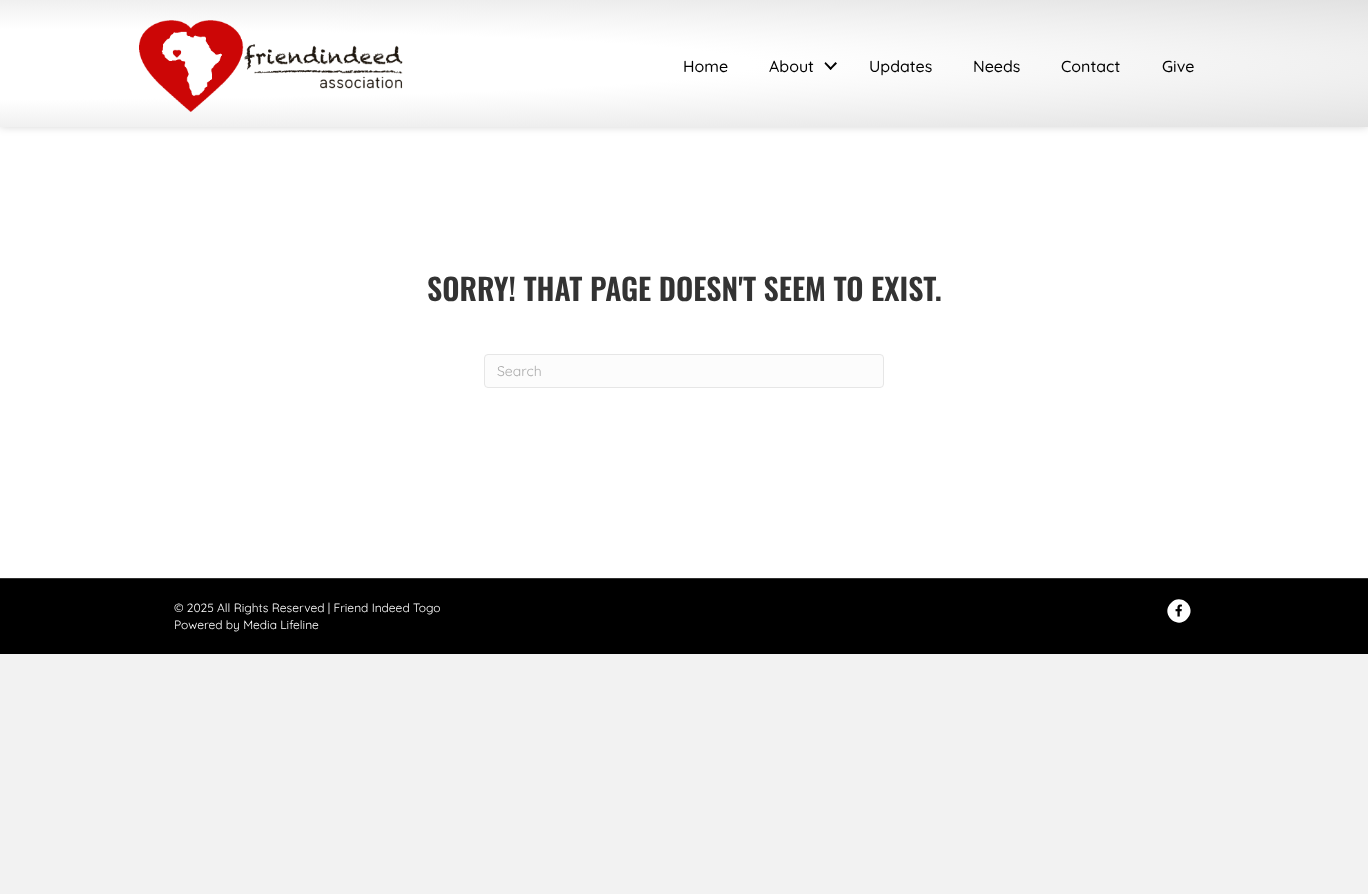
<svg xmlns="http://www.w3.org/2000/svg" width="1368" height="894">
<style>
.a{font:500 16px Quicksand;fill:#000}
.b{font:600 30px Oswald;fill:#333}
.c{font:14px Quicksand;fill:#acacac}
.d{font:12px Quicksand;fill:#fff}
</style>
<defs>
<radialGradient id="g1" gradientUnits="userSpaceOnUse" cx="0" cy="0" r="1" gradientTransform="matrix(1935 0 0 90 0 64)"><stop offset="0.39" stop-color="#fff"/><stop offset="1" stop-color="#e2e2e2"/></radialGradient>
</defs>
<rect width="100%" height="100%" fill="#f2f2f2"/>
<path fill="#fff" d="M0 127h1368v451H0z"/>
<path fill="#00000029" filter="blur(4px)" d="M0 0h1368v127H0z"/>
<path fill="url(#g1)" d="M0 0h1368v127H0z"/>
<image href="1.png" x="139" y="20" width="264" height="92"/>
<path fill="#000" d="M835.5 62l1.5 1.5l-6.5 6.5l-1-1.5z"/>
<path fill="#000" d="M825.5 62l6.5 6.5l-1.5 1.5l-6-6.5z"/>
<rect fill="#fcfcfc" stroke="#e6e6e6" x="484.5" y="354.5" width="399" height="33" rx="3.5"/>
<path fill="#000" d="M0 579h1368v75H0z"/>
<path fill="#303030" d="M0 578h1368v1H0z"/>
<path fill="#fff" d="M1171 603c10.5-11 27 5.5 16 16c-10.5 11-27-5.5-16-16z"/>
<image href="2.png" x="1175" y="604" width="7" height="13"/>
<text class="a" x="683" y="72">Home</text>
<text class="a" x="769" y="72">About</text>
<text class="a" x="869" y="72">Updates</text>
<text class="a" x="973" y="72">Needs</text>
<text class="a" x="1061" y="72">Contact</text>
<text class="a" x="1162" y="72">Give</text>
<text class="b" x="427" y="301">SORRY! THAT PAGE DOESN'T SEEM TO EXIST.</text>
<text class="c" x="497" y="376">Search</text>
<text class="d" x="174" y="612">© 2025 All Rights Reserved | Friend Indeed Togo</text>
<text class="d" x="174" y="629">Powered by Media Lifeline</text>
</svg>
